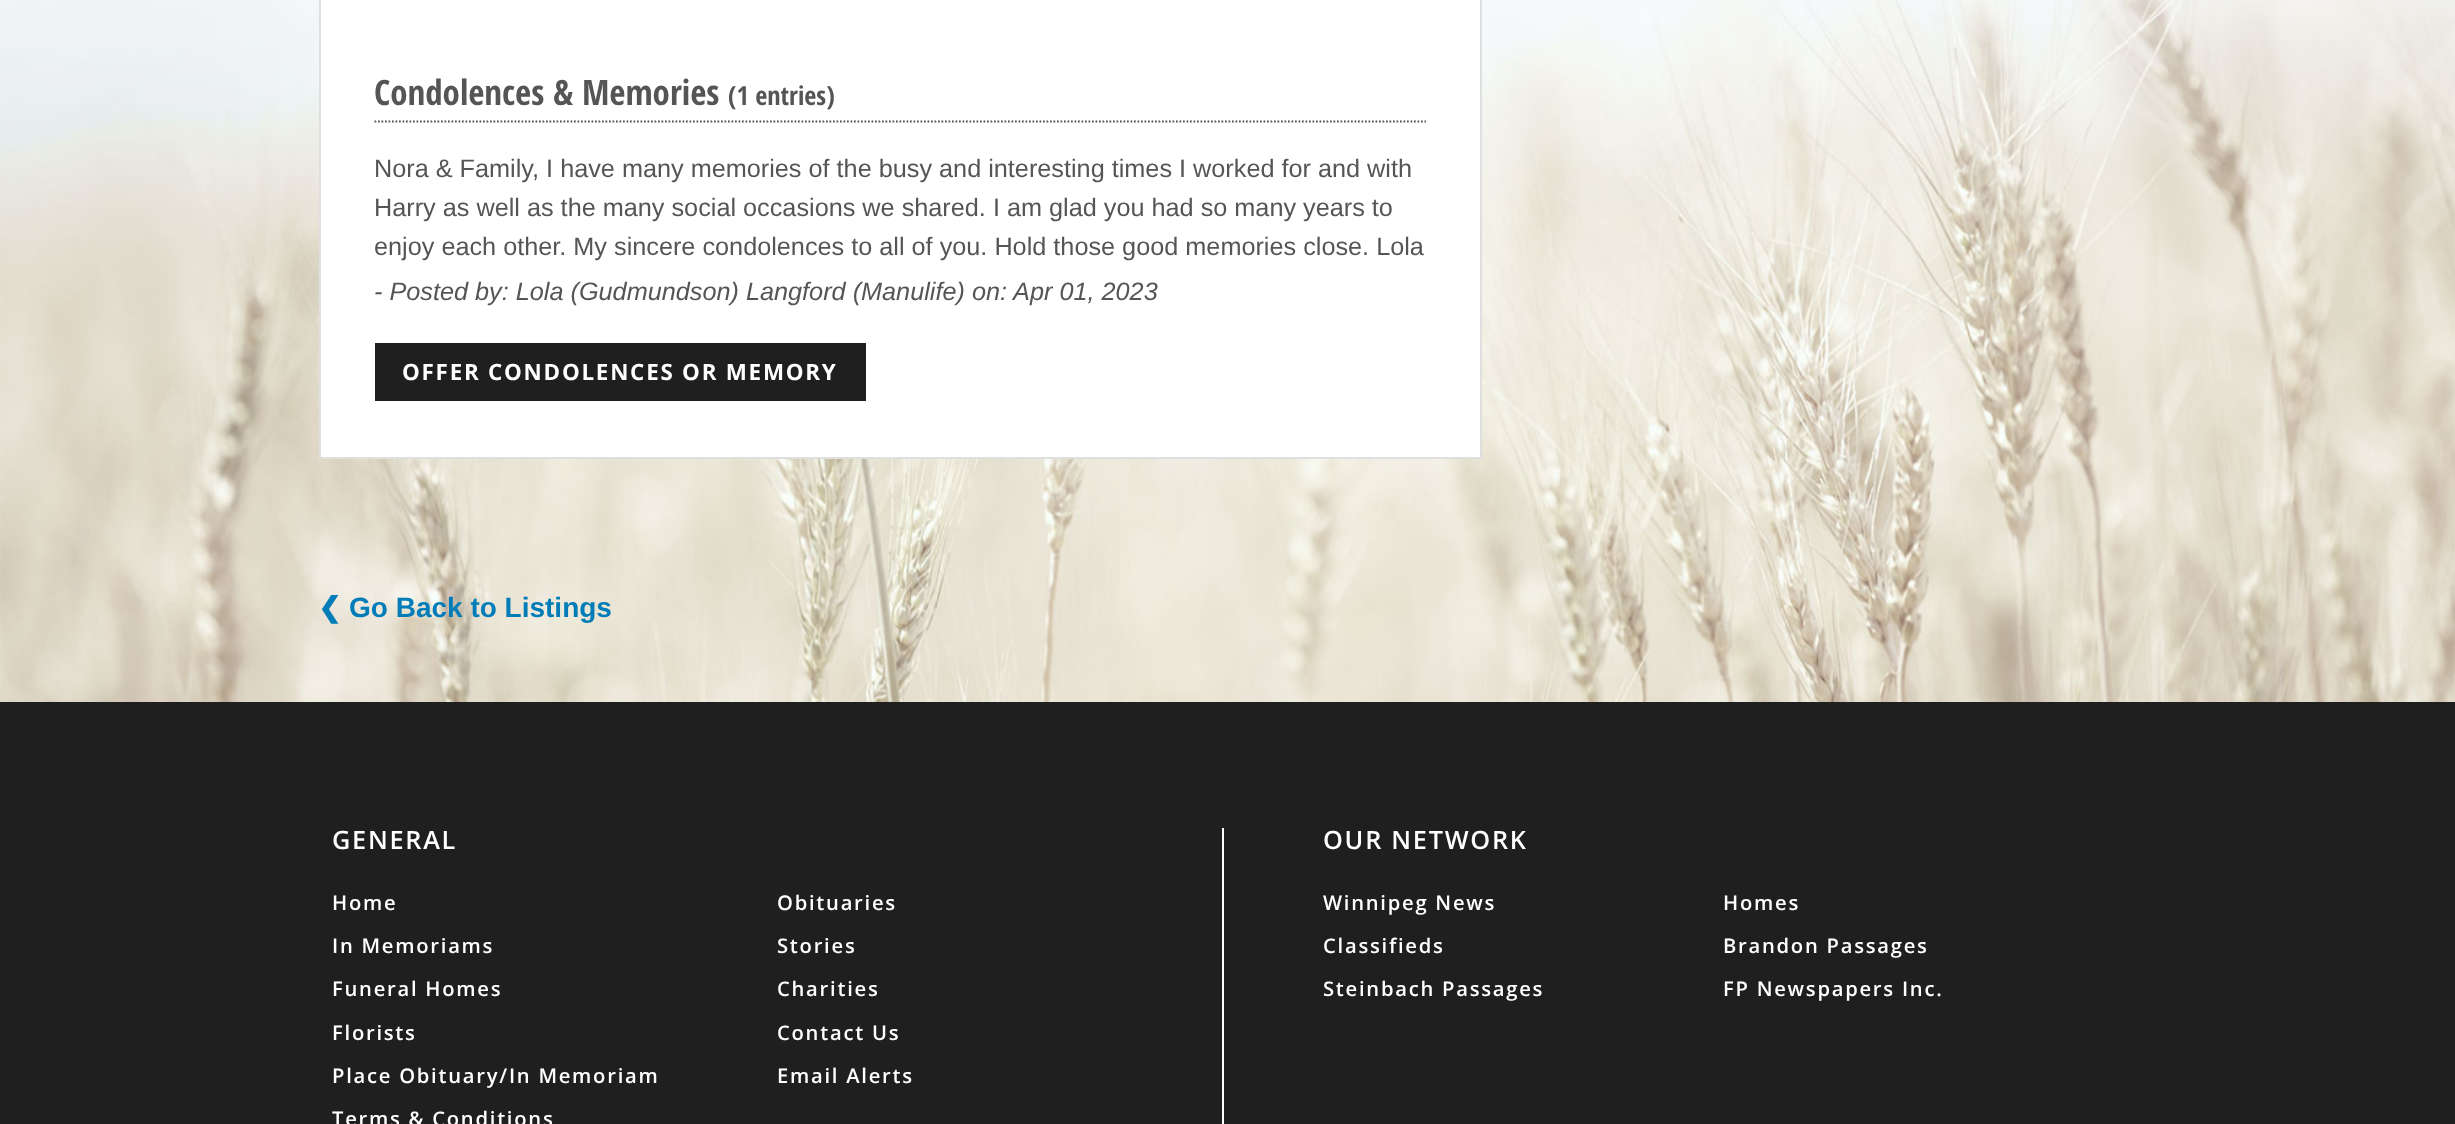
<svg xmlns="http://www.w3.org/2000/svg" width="2455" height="1124">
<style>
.a{font:bold 35px Open Sans Condensed;fill:#555}
.b{font:bold 26.25px Open Sans Condensed;fill:#555}
.c{font:25.25px Liberation Sans;fill:#555}
.d{font:italic 25.25px Liberation Sans;fill:#555}
.e{font:bold 22.4px Open Sans;letter-spacing:1.75px;fill:#fff}
.f{font:bold 28px DejaVu Sans;fill:#007db8}
.g{font:bold 28px Liberation Sans;fill:#007db8}
.h{font:600 25.25px Open Sans;letter-spacing:1.75px;fill:#fff}
.i{font:600 20.2px Open Sans;letter-spacing:1.75px;fill:#fff}
</style>
<rect width="100%" height="100%" fill="#fff"/>
<image href="1.png" x="0" y="0" width="2455" height="702"/>
<path fill="#fff" stroke="#dfdfdf" stroke-width="2" d="M320 -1h1161v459H320z"/>
<path fill="none" stroke="#555" stroke-width="1.8" stroke-dasharray="1.75 1.75" d="M374.5 121.5h1051.5"/>
<path fill="#1f1f1f" d="M375 343h491v58H375z"/>
<path fill="#1f1f1f" d="M0 702h2455v422H0z"/>
<path fill="#fff" d="M1222 828h2v296H1222z"/>
<text class="a" x="374" y="105">Condolences &amp; Memories</text>
<text class="b" x="728" y="105">(1 entries)</text>
<text class="c" x="374" y="177">Nora &amp; Family, I have many memories of the busy and interesting times I worked for and with</text>
<text class="c" x="374" y="216">Harry as well as the many social occasions we shared. I am glad you had so many years to</text>
<text class="c" x="374" y="255">enjoy each other. My sincere condolences to all of you. Hold those good memories close. Lola</text>
<text class="d" x="374" y="300">- Posted by: Lola (Gudmundson) Langford (Manulife) on: Apr 01, 2023</text>
<text class="e" x="402" y="380">OFFER CONDOLENCES OR MEMORY</text>
<text class="f" x="318" y="617">❮</text>
<text class="g" x="349" y="617">Go Back to Listings</text>
<text class="h" x="332" y="849">GENERAL</text>
<text class="i" x="332" y="910">Home</text>
<text class="i" x="777" y="910">Obituaries</text>
<text class="i" x="332" y="953">In Memoriams</text>
<text class="i" x="777" y="953">Stories</text>
<text class="i" x="332" y="996">Funeral Homes</text>
<text class="i" x="777" y="996">Charities</text>
<text class="i" x="332" y="1040">Florists</text>
<text class="i" x="777" y="1040">Contact Us</text>
<text class="i" x="332" y="1083">Place Obituary/In Memoriam</text>
<text class="i" x="777" y="1083">Email Alerts</text>
<text class="i" x="332" y="1126">Terms &amp; Conditions</text>
<text class="h" x="1323" y="849">OUR NETWORK</text>
<text class="i" x="1323" y="910">Winnipeg News</text>
<text class="i" x="1723" y="910">Homes</text>
<text class="i" x="1323" y="953">Classifieds</text>
<text class="i" x="1723" y="953">Brandon Passages</text>
<text class="i" x="1323" y="996">Steinbach Passages</text>
<text class="i" x="1723" y="996">FP Newspapers Inc.</text>
</svg>
